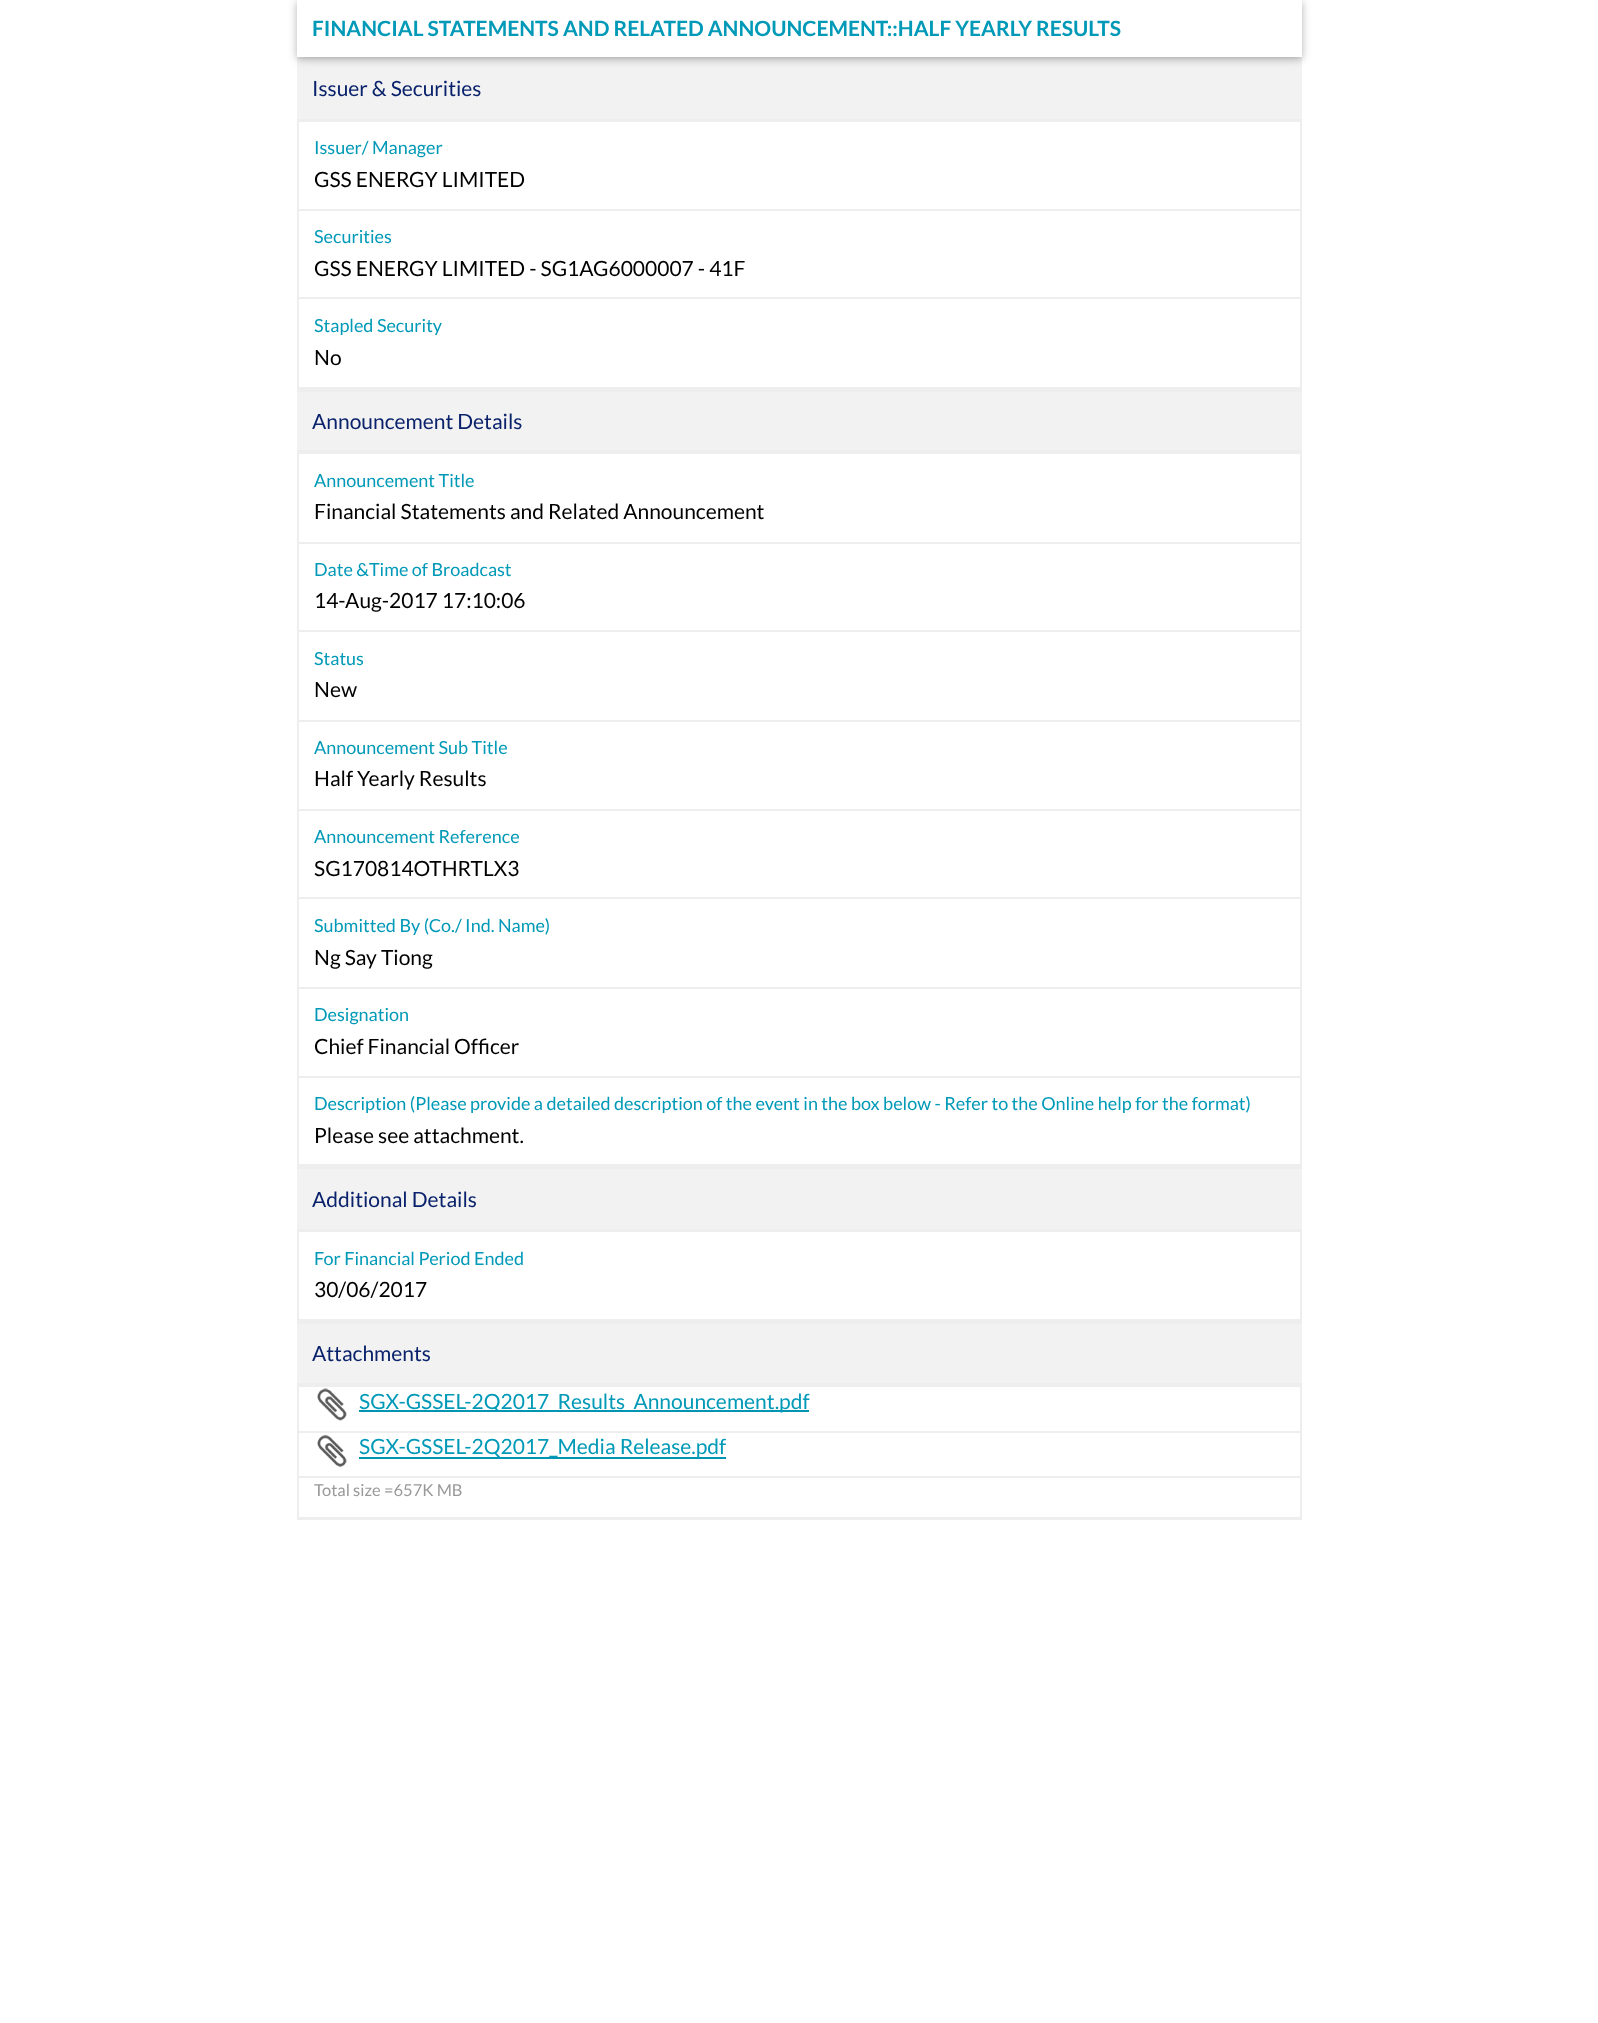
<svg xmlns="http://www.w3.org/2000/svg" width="1598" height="2023">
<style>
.a{font:bold 21px Lato;fill:#0099b7}
.b{font:21px Lato;fill:#0a226b}
.c{font:18px Lato;fill:#0099b7}
.d{font:21px Lato;fill:#000}
.e{font:21px Lato;fill:#0099b7}
.f{font:16.5px Lato;fill:#999}
</style>
<defs>
<clipPath id="clip1"><path d="M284 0h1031v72h-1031zm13 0h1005v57h-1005z" clip-rule="evenodd"/></clipPath>
</defs>
<rect width="100%" height="100%" fill="#fff"/>
<path fill="#f2f2f2" d="M297 59h1005v60H297z"/>
<path fill="#eee" d="M297 57h1005v2H297z"/>
<g clip-path="url(#clip1)">
<path fill="#0000004d" filter="blur(4px)" d="M297 2h1005v57H297z"/>
</g>
<path fill="#eee" d="M297 119h1005v1H297z"/>
<path fill="none" stroke="#eee" stroke-width="2" d="M298 121h1003v268H298z"/>
<path fill="#eee" d="M299 209h1002v2H299z"/>
<path fill="#eee" d="M299 297h1002v2H299z"/>
<path fill="#eee" d="M299 387h1002v1H299z"/>
<path fill="#f2f2f2" d="M297 392h1005v58H297z"/>
<path fill="#eee" d="M297 390h1005v2H297z"/>
<path fill="#eee" d="M297 450h1005v2H297z"/>
<path fill="none" stroke="#eee" stroke-width="2" d="M298 453h1003v713H298z"/>
<path fill="#eee" d="M299 542h1002v2H299z"/>
<path fill="#eee" d="M299 630h1002v2H299z"/>
<path fill="#eee" d="M299 720h1002v2H299z"/>
<path fill="#eee" d="M299 809h1002v2H299z"/>
<path fill="#eee" d="M299 897h1002v2H299z"/>
<path fill="#eee" d="M299 987h1002v2H299z"/>
<path fill="#eee" d="M299 1076h1002v2H299z"/>
<path fill="#eee" d="M299 1164h1002v1H299z"/>
<path fill="#f2f2f2" d="M297 1169h1005v60H297z"/>
<path fill="#eee" d="M297 1167h1005v2H297z"/>
<path fill="#eee" d="M297 1229h1005v1H297z"/>
<path fill="none" stroke="#eee" stroke-width="2" d="M298 1231h1003v90H298z"/>
<path fill="#eee" d="M299 1319h1002v1H299z"/>
<path fill="#f2f2f2" d="M297 1324h1005v59H297z"/>
<path fill="#eee" d="M297 1322h1005v2H297z"/>
<path fill="#eee" d="M297 1383h1005v2H297z"/>
<path fill="none" stroke="#eee" stroke-width="2" d="M298 1386h1003v133H298z"/>
<path fill="#eee" d="M299 1431h1002v2H299z"/>
<image href="1.png" x="317" y="1388" width="30" height="33"/>
<path fill="#0094b3" d="M359 1410h450v2H359z"/>
<path fill="#eee" d="M299 1476h1002v2H299z"/>
<image href="2.png" x="317" y="1434" width="30" height="33"/>
<path fill="#0094b3" d="M359 1457h367v2H359z"/>
<path fill="#eee" d="M299 1517h1002v1H299z"/>
<text class="a" x="312" y="36">FINANCIAL STATEMENTS AND RELATED ANNOUNCEMENT::HALF YEARLY RESULTS</text>
<text class="b" x="312" y="96">Issuer &amp; Securities</text>
<text class="c" x="314" y="154">Issuer/ Manager</text>
<text class="d" x="314" y="187">GSS ENERGY LIMITED</text>
<text class="c" x="314" y="243">Securities</text>
<text class="d" x="314" y="276">GSS ENERGY LIMITED - SG1AG6000007 - 41F</text>
<text class="c" x="314" y="332">Stapled Security</text>
<text class="d" x="314" y="365">No</text>
<text class="b" x="312" y="429">Announcement Details</text>
<text class="c" x="314" y="487">Announcement Title</text>
<text class="d" x="314" y="519">Financial Statements and Related Announcement</text>
<text class="c" x="314" y="576">Date &amp;Time of Broadcast</text>
<text class="d" x="314" y="608">14-Aug-2017 17:10:06</text>
<text class="c" x="314" y="665">Status</text>
<text class="d" x="314" y="697">New</text>
<text class="c" x="314" y="754">Announcement Sub Title</text>
<text class="d" x="314" y="786">Half Yearly Results</text>
<text class="c" x="314" y="843">Announcement Reference</text>
<text class="d" x="314" y="876">SG170814OTHRTLX3</text>
<text class="c" x="314" y="932">Submitted By (Co./ Ind. Name)</text>
<text class="d" x="314" y="965">Ng Say Tiong</text>
<text class="c" x="314" y="1021">Designation</text>
<text class="d" x="314" y="1054">Chief Financial Officer</text>
<text class="c" x="314" y="1110">Description (Please provide a detailed description of the event in the box below - Refer to the Online help for the format)</text>
<text class="d" x="314" y="1143">Please see attachment.</text>
<text class="b" x="312" y="1207">Additional Details</text>
<text class="c" x="314" y="1265">For Financial Period Ended</text>
<text class="d" x="314" y="1297">30/06/2017</text>
<text class="b" x="312" y="1361">Attachments</text>
<text class="e" x="359" y="1409">SGX-GSSEL-2Q2017_Results_Announcement.pdf</text>
<text class="e" x="359" y="1454">SGX-GSSEL-2Q2017_Media Release.pdf</text>
<text class="f" x="314" y="1496">Total size =657K MB</text>
</svg>
